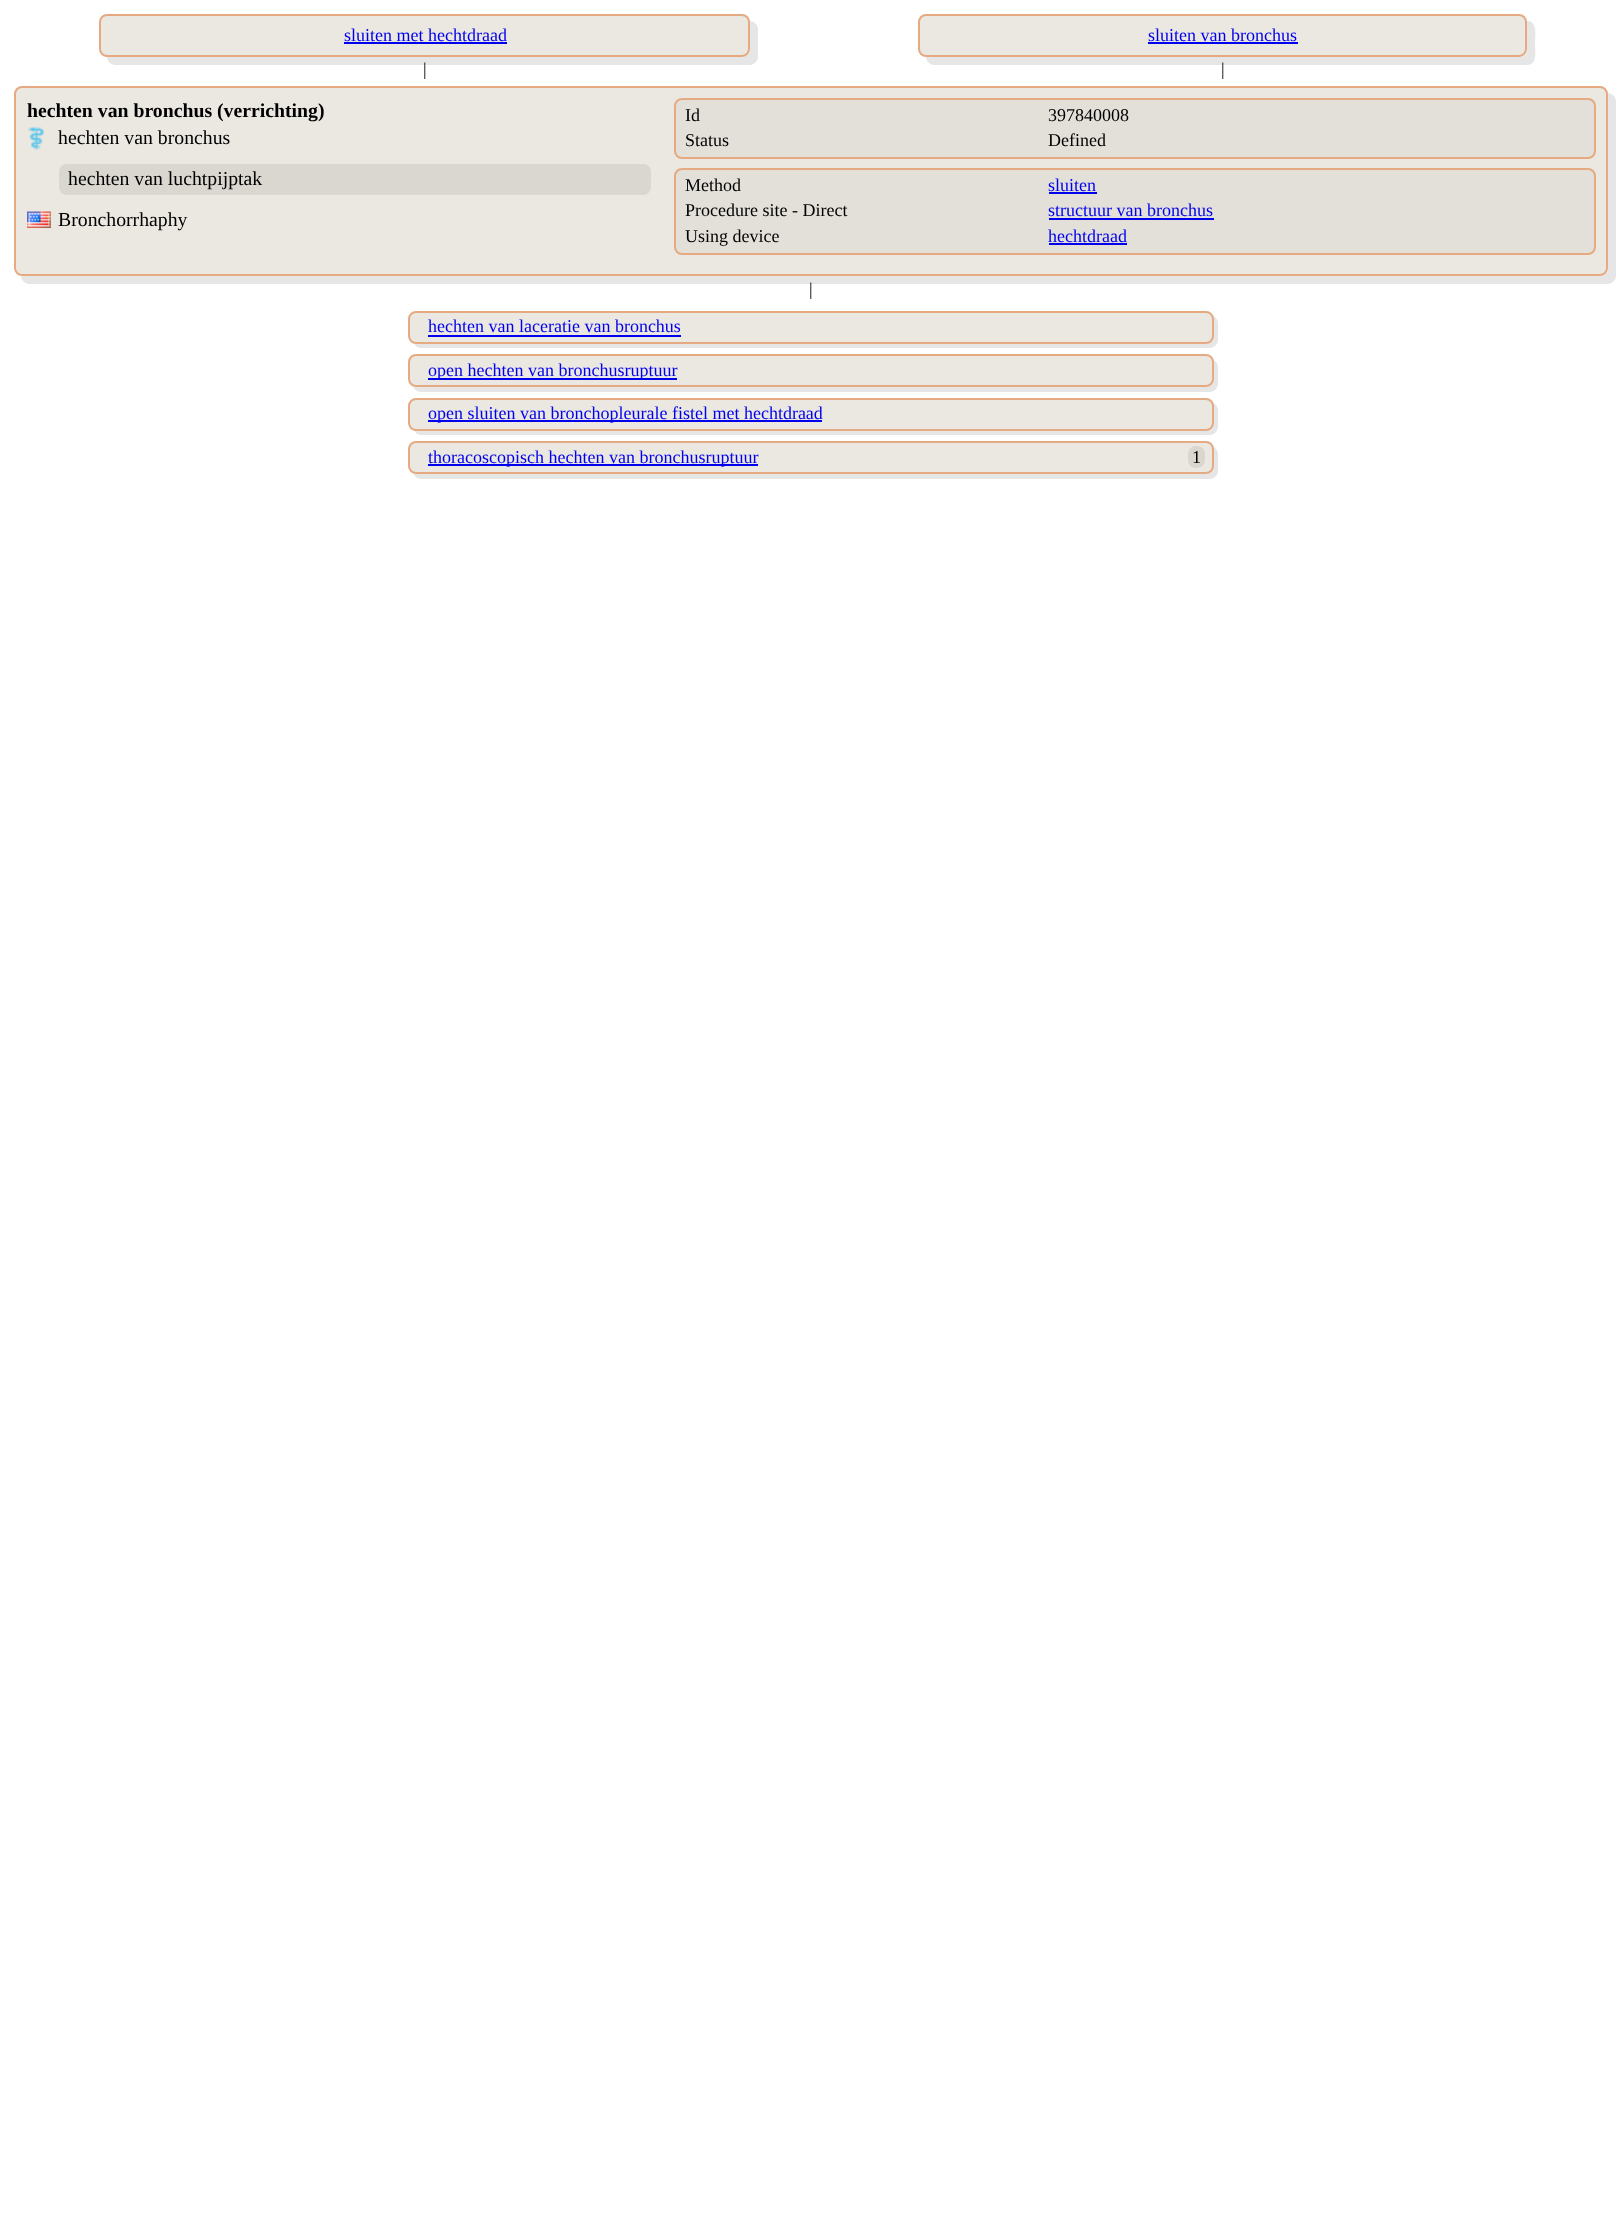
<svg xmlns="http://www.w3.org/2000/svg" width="1621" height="2236">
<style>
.a{font:18px Liberation Serif;fill:#00e}
.b{font:18px Liberation Serif;fill:#000}
.c{font:bold 19.75px Liberation Serif;fill:#000}
.d{font:19.75px Liberation Serif;fill:#000}
</style>
<rect width="100%" height="100%" fill="#fff"/>
<path fill="#e6e6e6" d="M107 57c0 4 4 8 8 8h635c4 0 8-4 8-8v-28c0-4-4-8-8-8v29c0 4-3 7-8 7z"/>
<rect fill="#ebe7e1" stroke="#e6aa83" stroke-width="2" x="100" y="15" width="649" height="41" rx="7"/>
<path fill="#00e" d="M344 42h163v2H344z"/>
<path fill="#e6e6e6" d="M926 57c0 4 4 8 8 8h593c11 0 8-15 8-22c0-7 3-22-8-22v29c0 4-3 7-7 7z"/>
<rect fill="#ebe7e1" stroke="#e6aa83" stroke-width="2" x="919" y="15" width="607" height="41" rx="7"/>
<path fill="#00e" d="M1148 42h150v2H1148z"/>
<path fill="#e6e6e6" d="M21 276c0 4 4 8 8 8h1579c4 0 8-4 8-8v-175c0-4-4-8-8-8v175c0 5-3 8-8 8z"/>
<rect fill="#ebe7e1" stroke="#e6aa83" stroke-width="2" x="15" y="87" width="1592" height="188" rx="7"/>
<image href="1.png" x="28" y="127" width="16" height="23"/>
<rect fill="#dad6d0" x="59" y="164" width="592" height="31" rx="8"/>
<image href="2.png" x="27" y="211" width="24" height="17"/>
<rect fill="#e3dfd9" stroke="#e6aa83" stroke-width="2" x="675" y="99" width="920" height="59" rx="7"/>
<rect fill="#e3dfd9" stroke="#e6aa83" stroke-width="2" x="675" y="169" width="920" height="85" rx="7"/>
<path fill="#00e" d="M1049 192h48v2H1049z"/>
<path fill="#00e" d="M1049 218h165v2H1049z"/>
<path fill="#00e" d="M1049 243h78v2H1049z"/>
<path fill="#e6e6e6" d="M414 343c1 3 4 5 7 5h789c4 0 8-4 8-8v-17c0-3-2-6-5-7l1 11c0 6 1 16-8 17z"/>
<rect fill="#ebe7e1" stroke="#e6aa83" stroke-width="2" x="409" y="312" width="804" height="31" rx="7"/>
<path fill="#00e" d="M428 335h253v2H428z"/>
<path fill="#e6e6e6" d="M413 387c2 3 5 5 8 5h789c4 0 8-4 8-8v-17c0-3-2-6-5-7l1 10c0 6 1 17-8 17z"/>
<rect fill="#ebe7e1" stroke="#e6aa83" stroke-width="2" x="409" y="355" width="804" height="31" rx="7"/>
<path fill="#00e" d="M428 378h249v2H428z"/>
<path fill="#e6e6e6" d="M414 430c1 3 4 5 7 5h789c4 0 8-4 8-8v-17c0-3-2-6-5-7l1 11c0 6 1 16-8 16z"/>
<rect fill="#ebe7e1" stroke="#e6aa83" stroke-width="2" x="409" y="399" width="804" height="31" rx="7"/>
<path fill="#00e" d="M428 420h394v2H428z"/>
<path fill="#e6e6e6" d="M413 474c2 3 5 5 8 5h789c4 0 8-4 8-8v-17c0-3-2-6-5-7l1 11c0 5 1 16-8 16z"/>
<rect fill="#ebe7e1" stroke="#e6aa83" stroke-width="2" x="409" y="442" width="804" height="31" rx="7"/>
<path fill="#00e" d="M428 464h330v2H428z"/>
<rect fill="#dad6d0" x="1188" y="446" width="17" height="22" rx="8"/>
<text class="a" x="344" y="41">sluiten met hechtdraad</text>
<text class="a" x="1148" y="41">sluiten van bronchus</text>
<text class="b" x="423" y="75">|</text>
<text class="b" x="1221" y="75">|</text>
<text class="c" x="27" y="117">hechten van bronchus (verrichting)</text>
<text class="d" x="58" y="144">hechten van bronchus</text>
<text class="d" x="68" y="185">hechten van luchtpijptak</text>
<text class="d" x="58" y="226">Bronchorrhaphy</text>
<text class="b" x="685" y="121">Id</text>
<text class="b" x="1048" y="121">397840008</text>
<text class="b" x="685" y="146">Status</text>
<text class="b" x="1048" y="146">Defined</text>
<text class="b" x="685" y="191">Method</text>
<text class="a" x="1048" y="191">sluiten</text>
<text class="b" x="685" y="216">Procedure site - Direct</text>
<text class="a" x="1048" y="216">structuur van bronchus</text>
<text class="b" x="685" y="242">Using device</text>
<text class="a" x="1048" y="242">hechtdraad</text>
<text class="b" x="809" y="295">|</text>
<text class="a" x="428" y="332">hechten van laceratie van bronchus</text>
<text class="a" x="428" y="376">open hechten van bronchusruptuur</text>
<text class="a" x="428" y="419">open sluiten van bronchopleurale fistel met hechtdraad</text>
<text class="a" x="428" y="463">thoracoscopisch hechten van bronchusruptuur</text>
<text class="b" x="1192" y="463">1</text>
</svg>
